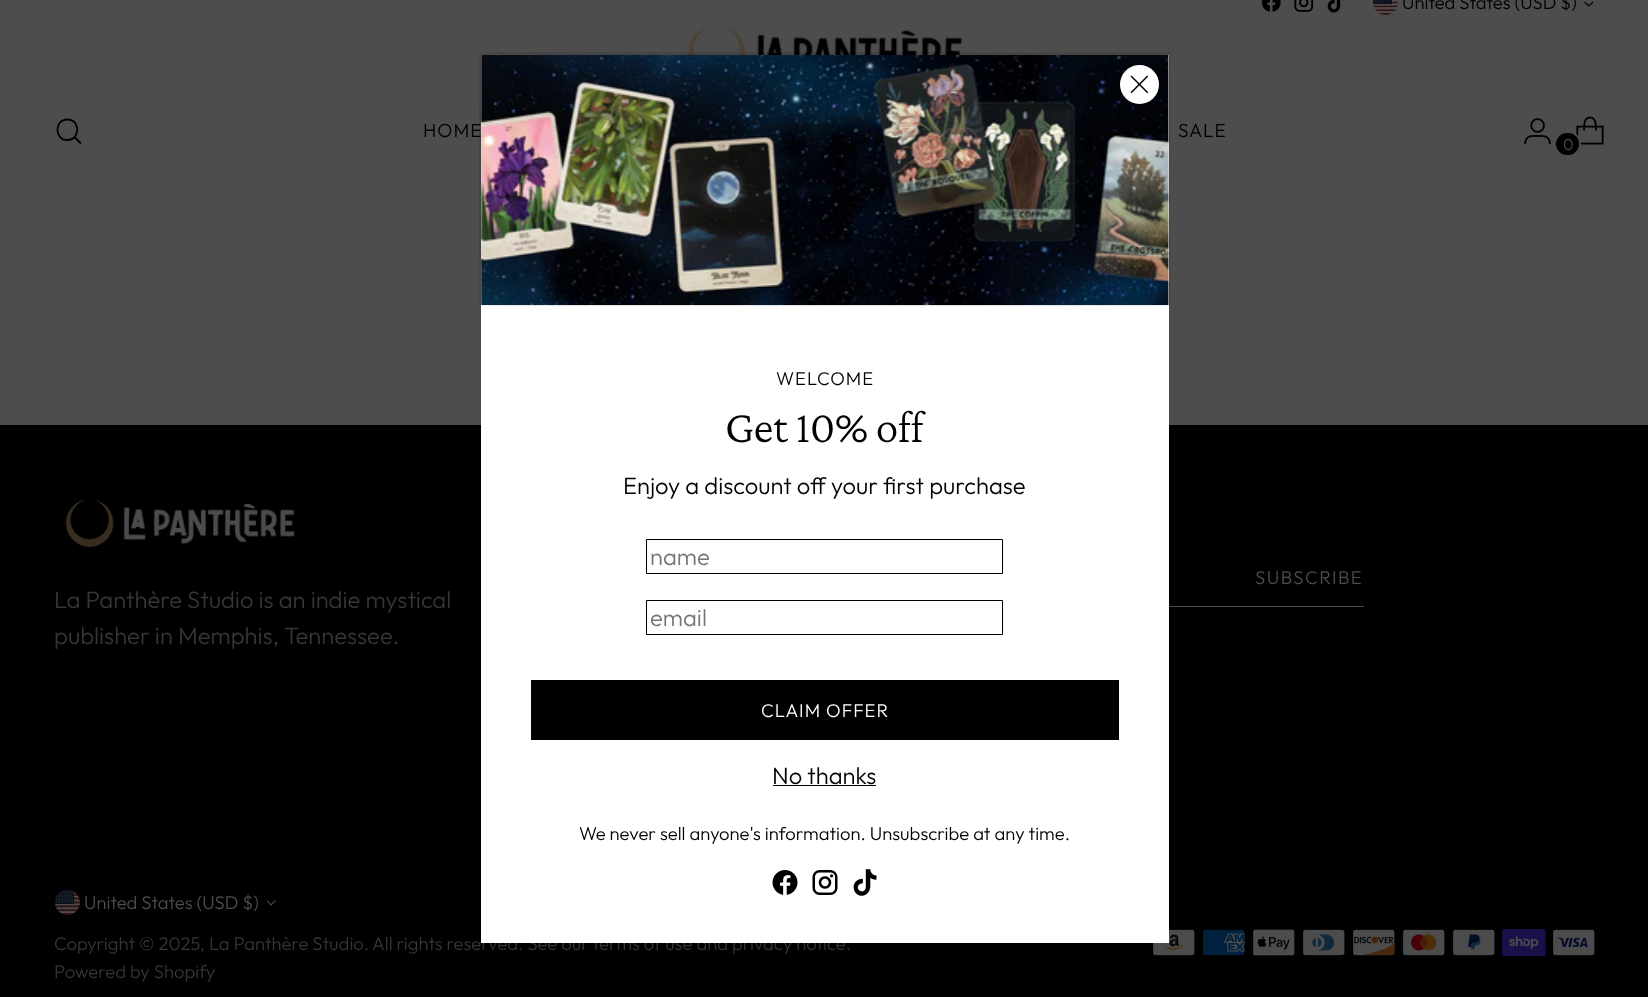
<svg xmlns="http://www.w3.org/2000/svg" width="1648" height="997">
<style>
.a{font:300 18.45px Outfit;fill:#000}
.b{font:300 19px Outfit;letter-spacing:1px;fill:#000}
.c{font:300 16px Outfit;fill:#4d4d4d}
.d{font:300 18.45px Outfit;letter-spacing:1.4px;fill:#4d4d4d}
.e{font:300 23.75px Outfit;fill:#363636}
.f{font:300 18.45px Outfit;fill:#4d4d4d}
.g{font:300 18.45px Outfit;fill:#363636}
.h{font:300 18.45px Outfit;letter-spacing:1px;fill:#fff}
.i{font:300 23.75px Outfit;fill:#757575}
.j{font:300 23.75px Outfit;fill:#000}
.k{font:300 46px Crimson Pro;letter-spacing:-0.5px;fill:#000}
.l{font:300 18.45px Outfit;letter-spacing:1px;fill:#000}
</style>
<defs>
<clipPath id="clip1"><path d="M531 680h588v60H531z"/></clipPath>
</defs>
<rect width="100%" height="100%" fill="#4d4d4d"/>
<image href="1.png" x="1261" y="0" width="20" height="12"/>
<image href="2.png" x="1294" y="0" width="20" height="12"/>
<image href="3.png" x="1327" y="0" width="18" height="13"/>
<image href="4.png" x="1373" y="0" width="25" height="15"/>
<path fill="none" stroke="#000" stroke-width="1.1" d="M1584.5 2l4.5 4l4-4"/>
<image href="5.png" x="687" y="25" width="276" height="30"/>
<path fill="none" stroke="#000" stroke-width="1.8" stroke-linecap="round" d="M67.5 140c13 0 13-20.5 0-20.5c-13.5 0-13.5 20.5 0 20.5z"/>
<path fill="none" stroke="#000" stroke-width="1.8" d="M74.5 137l6.5 6.5"/>
<image href="6.png" x="1524" y="118" width="27" height="27"/>
<image href="7.png" x="1576" y="116" width="28" height="29"/>
<rect fill="none" stroke="#4d4d4d" stroke-width="2" x="1556" y="132" width="24" height="25" rx="12"/>
<rect fill="#000" x="1556" y="133" width="23" height="22" rx="11"/>
<path fill="#000" d="M0 425h1648v572H0z"/>
<path fill="#4d4d4d" d="M1169 606h195v1H1169z"/>
<image href="13.png" x="65" y="499" width="230" height="49"/>
<image href="14.png" x="55" y="890" width="25" height="25"/>
<path fill="none" stroke="#4d4d4d" stroke-width="1.1" d="M267 900.5l4 4.5l4.5-4.5"/>
<image href="15.png" x="1153" y="929" width="42" height="27"/>
<image href="16.png" x="1203" y="929" width="42" height="27"/>
<image href="17.png" x="1253" y="929" width="42" height="27"/>
<image href="18.png" x="1303" y="929" width="42" height="27"/>
<image href="19.png" x="1353" y="929" width="42" height="27"/>
<image href="20.png" x="1403" y="929" width="42" height="27"/>
<image href="21.png" x="1453" y="929" width="42" height="27"/>
<image href="22.png" x="1502" y="929" width="44" height="27"/>
<image href="23.png" x="1553" y="929" width="42" height="27"/>
<text class="a" x="1402" y="9">United States (USD $)</text>
<text class="b" x="423" y="137">HOME</text>
<text class="b" x="1178" y="137">SALE</text>
<text class="c" x="1563" y="150">0</text>
<text class="d" x="1255" y="584">SUBSCRIBE</text>
<text class="e" x="54" y="608">La Panthère Studio is an indie mystical</text>
<text class="e" x="54" y="644">publisher in Memphis, Tennessee.</text>
<text class="f" x="84" y="909">United States (USD $)</text>
<text class="g" x="54" y="950">Copyright © 2025,</text>
<text class="g" x="209" y="950">La Panthère Studio</text>
<text class="g" x="364" y="950">.</text>
<text class="g" x="372" y="950">All rights reserved. See our terms of use and privacy notice.</text>
<path fill="#fff" d="M481 55h688v888H481z"/>
<g clip-path="url(#clip1)">
<path fill="#000" d="M425 680h764l35 60h-764z"/>
</g>
<text class="h" x="761" y="717">CLAIM OFFER</text>
<image href="8.png" x="479" y="52" width="691" height="254"/>
<circle fill="#fff" cx="1139.5" cy="84.5" r="19.5"/>
<image href="9.png" x="1130" y="75" width="19" height="19"/>
<path fill="none" stroke="#000" d="M646.5 600.5h356v34H646.5z"/>
<text class="i" x="650" y="626">email</text>
<path fill="none" stroke="#000" d="M646.5 539.5h356v34H646.5z"/>
<text class="i" x="650" y="565">name</text>
<image href="12.png" x="853" y="869" width="24" height="27"/>
<image href="11.png" x="812" y="870" width="26" height="25"/>
<image href="10.png" x="772" y="870" width="26" height="25"/>
<text class="a" x="579" y="840">We never sell anyone's information. Unsubscribe at any time.</text>
<text class="j" x="772" y="784">No thanks</text>
<path fill="#000" d="M773 785h103v1H773z"/>
<text class="j" x="623" y="494">Enjoy a discount off your first purchase</text>
<text class="k" x="725" y="442">Get 10% off</text>
<text class="l" x="776" y="385">WELCOME</text>
<text class="g" x="54" y="978">Powered by Shopify</text>
</svg>
